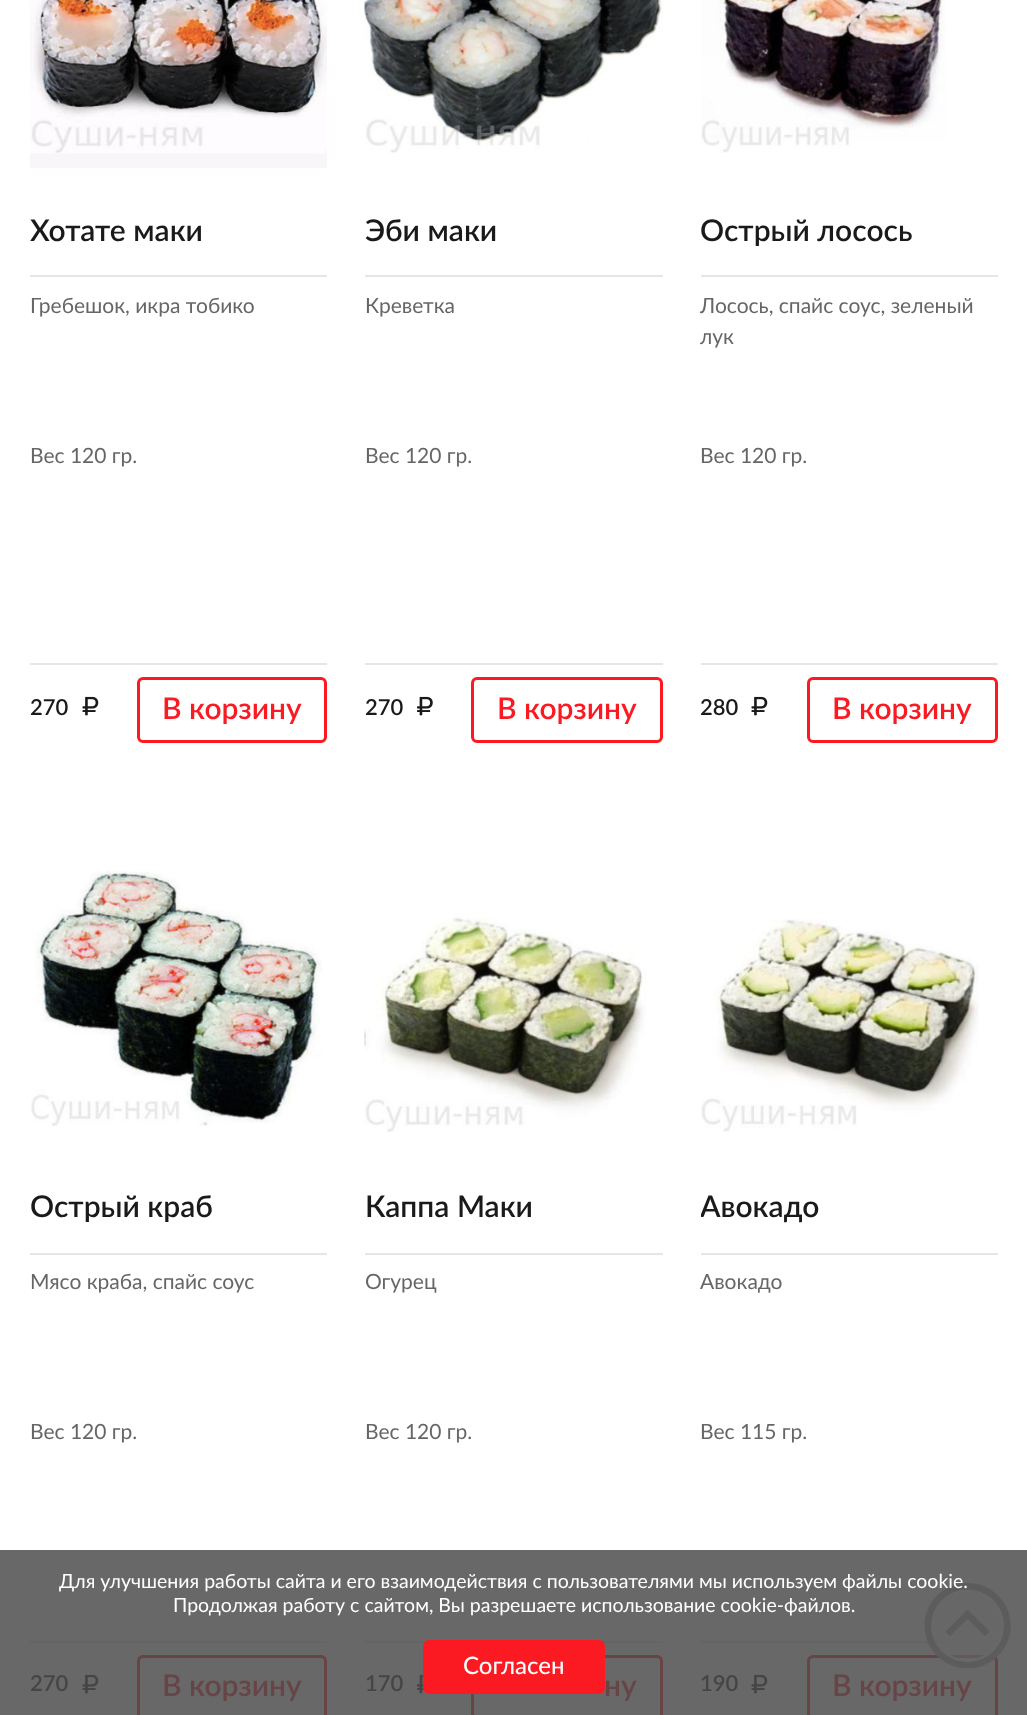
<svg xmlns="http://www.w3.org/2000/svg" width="1027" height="1715">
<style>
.a{font:600 30px Lato;fill:#1a1a1a}
.b{font:21px Lato;fill:#666}
.c{font:600 22px Lato;fill:#1a1a1a}
.d{font:600 30px Lato;fill:#fb1a22}
.e{font:600 22px Lato;fill:#454545}
.f{font:600 30px Lato;fill:#674547}
.g{font:19.5px Lato;fill:#fff}
.h{font:500 24px Lato;fill:#fff}
</style>
<defs>
<clipPath id="clip1"><path d="M701 1172h297v60H701z"/></clipPath>
</defs>
<rect width="100%" height="100%" fill="#fff"/>
<path fill="#686868" d="M0 1550h1027v165H0z"/>
<image href="1.png" x="30" y="0" width="297" height="168"/>
<path fill="#e6e6e6" d="M30 275h297v2H30z"/>
<path fill="#e6e6e6" d="M30 663h297v2H30z"/>
<image href="2.png" x="82" y="696" width="17" height="20"/>
<rect fill="none" stroke="#fb1a22" stroke-width="3" x="138.5" y="678.5" width="187" height="63" rx="4.5"/>
<image href="3.png" x="364" y="0" width="299" height="153"/>
<path fill="#e6e6e6" d="M365 275h298v2H365z"/>
<path fill="#e6e6e6" d="M365 663h298v2H365z"/>
<image href="4.png" x="417" y="696" width="16" height="20"/>
<rect fill="none" stroke="#fb1a22" stroke-width="3" x="472.5" y="678.5" width="189" height="63" rx="4.5"/>
<image href="5.png" x="701" y="0" width="245" height="153"/>
<path fill="#e6e6e6" d="M701 275h297v2H701z"/>
<path fill="#e6e6e6" d="M701 663h297v2H701z"/>
<image href="2.png" x="751" y="696" width="17" height="20"/>
<rect fill="none" stroke="#fb1a22" stroke-width="3" x="808.5" y="678.5" width="188" height="63" rx="4.5"/>
<image href="6.png" x="31" y="870" width="292" height="256"/>
<path fill="#e6e6e6" d="M30 1253h297v2H30z"/>
<path fill="#646464" d="M30 1641h297v2H30z"/>
<image href="7.png" x="82" y="1674" width="17" height="20"/>
<rect fill="none" stroke="#674547" stroke-width="3" x="138.5" y="1656.5" width="187" height="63" rx="4.5"/>
<image href="8.png" x="364" y="914" width="283" height="218"/>
<path fill="#e6e6e6" d="M365 1253h298v2H365z"/>
<path fill="#646464" d="M365 1641h298v2H365z"/>
<image href="9.png" x="417" y="1674" width="7" height="20"/>
<rect fill="none" stroke="#674547" stroke-width="3" x="472.5" y="1656.5" width="189" height="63" rx="4.5"/>
<image href="10.png" x="701" y="919" width="278" height="213"/>
<path fill="#e6e6e6" d="M701 1253h297v2H701z"/>
<path fill="#646464" d="M701 1641h297v2H701z"/>
<image href="7.png" x="751" y="1674" width="17" height="20"/>
<rect fill="none" stroke="#674547" stroke-width="3" x="808.5" y="1656.5" width="188" height="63" rx="4.5"/>
<rect fill="#fb1a22" stroke="#fb1a22" stroke-width="3" x="424.5" y="1641.5" width="179" height="51" rx="4.5"/>
<image href="11.png" x="924" y="1583" width="87" height="86"/>
<text class="a" x="30" y="241">Хотате маки</text>
<text class="b" x="30" y="313">Гребешок, икра тобико</text>
<text class="b" x="30" y="463">Вес 120 гр.</text>
<text class="c" x="30" y="715">270</text>
<text class="d" x="162" y="719">В корзину</text>
<text class="a" x="365" y="241">Эби маки</text>
<text class="b" x="365" y="313">Креветка</text>
<text class="b" x="365" y="463">Вес 120 гр.</text>
<text class="c" x="365" y="715">270</text>
<text class="d" x="497" y="719">В корзину</text>
<text class="a" x="700" y="241">Острый лосось</text>
<text class="b" x="700" y="313">Лосось, спайс соус, зеленый</text>
<text class="b" x="700" y="344">лук</text>
<text class="b" x="700" y="463">Вес 120 гр.</text>
<text class="c" x="700" y="715">280</text>
<text class="d" x="832" y="719">В корзину</text>
<text class="a" x="30" y="1217">Острый краб</text>
<text class="b" x="30" y="1289">Мясо краба, спайс соус</text>
<text class="b" x="30" y="1439">Вес 120 гр.</text>
<text class="e" x="30" y="1691">270</text>
<text class="f" x="162" y="1696">В корзину</text>
<text class="a" x="365" y="1217">Каппа Маки</text>
<text class="b" x="365" y="1289">Огурец</text>
<text class="b" x="365" y="1439">Вес 120 гр.</text>
<text class="e" x="365" y="1691">170</text>
<text class="f" x="604" y="1696">ну</text>
<g clip-path="url(#clip1)">
<text class="a" x="700" y="1217">Авокадо</text>
</g>
<text class="b" x="700" y="1289">Авокадо</text>
<text class="b" x="700" y="1439">Вес 115 гр.</text>
<text class="e" x="700" y="1691">190</text>
<text class="f" x="832" y="1696">В корзину</text>
<text class="g" x="59" y="1588">Для улучшения работы сайта и его взаимодействия с пользователями мы используем файлы cookie.</text>
<text class="g" x="173" y="1612">Продолжая работу с сайтом, Вы разрешаете использование cookie-файлов.</text>
<text class="h" x="463" y="1674">Согласен</text>
</svg>
